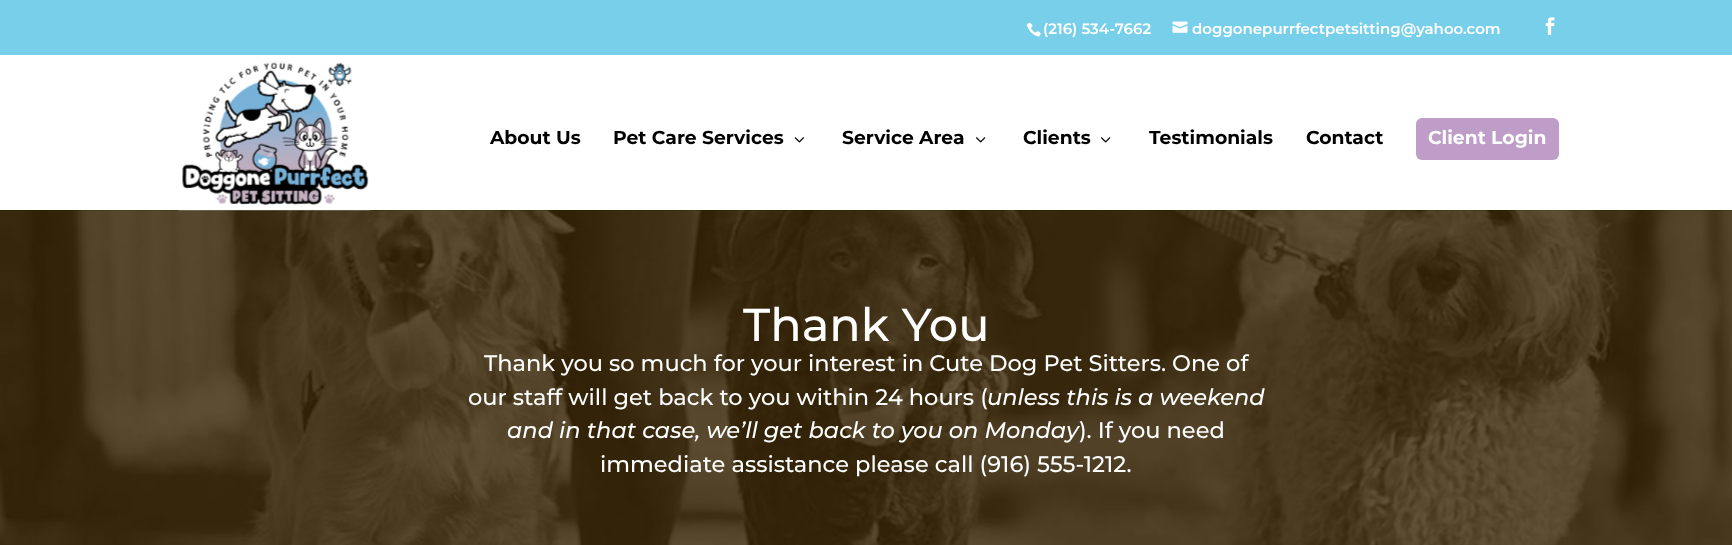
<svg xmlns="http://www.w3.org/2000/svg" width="1732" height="545">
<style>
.a{font:100 15px 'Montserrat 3';fill:#fff}
.b{font:100 18.75px 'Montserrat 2';fill:#000}
.c{font:100 18.75px 'Montserrat 2';fill:#fff}
.d{font:100 46.25px Montserrat;fill:#fff}
.e{font:100 22.5px Montserrat;fill:#fff}
.f{font:italic 100 22.5px Montserrat;fill:#fff}
</style>
<rect width="100%" height="100%" fill="#fff"/>
<path fill="#78cfe9" d="M0 0h1732v55H0z"/>
<image href="1.png" x="1026" y="22" width="15" height="15"/>
<image href="2.png" x="1172" y="21" width="16" height="12"/>
<image href="3.png" x="1545" y="17" width="10" height="18"/>
<image href="7.png" x="0" y="210" width="1732" height="335"/>
<path fill="#0000001a" d="M0 210v1h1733v-155h-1v154z"/>
<image href="4.png" x="178" y="62" width="193" height="149"/>
<image href="5.png" x="794" y="137" width="10" height="6"/>
<image href="6.png" x="976" y="137" width="10" height="6"/>
<image href="6.png" x="1101" y="137" width="10" height="6"/>
<rect fill="#be9dc8" x="1416" y="118" width="143" height="42" rx="6"/>
<text class="a" x="1043" y="34">(216) 534-7662</text>
<text class="a" x="1192" y="34">doggonepurrfectpetsitting@yahoo.com</text>
<text class="b" x="490" y="144">About Us</text>
<text class="b" x="613" y="144">Pet Care Services</text>
<text class="b" x="842" y="144">Service Area</text>
<text class="b" x="1023" y="144">Clients</text>
<text class="b" x="1149" y="144">Testimonials</text>
<text class="b" x="1306" y="144">Contact</text>
<text class="c" x="1428" y="144">Client Login</text>
<text class="d" x="743" y="341">Thank You</text>
<text class="e" x="484" y="371">Thank you so much for your interest in Cute Dog Pet Sitters. One of</text>
<text class="e" x="468" y="405">our staff will get back to you within 24 hours (</text>
<text class="f" x="987" y="405">unless this is a weekend</text>
<text class="f" x="507" y="438">and in that case, we’ll get back to you on Monday</text>
<text class="e" x="1079" y="438">). If you need</text>
<text class="e" x="600" y="472">immediate assistance please call (916) 555-1212.</text>
</svg>
